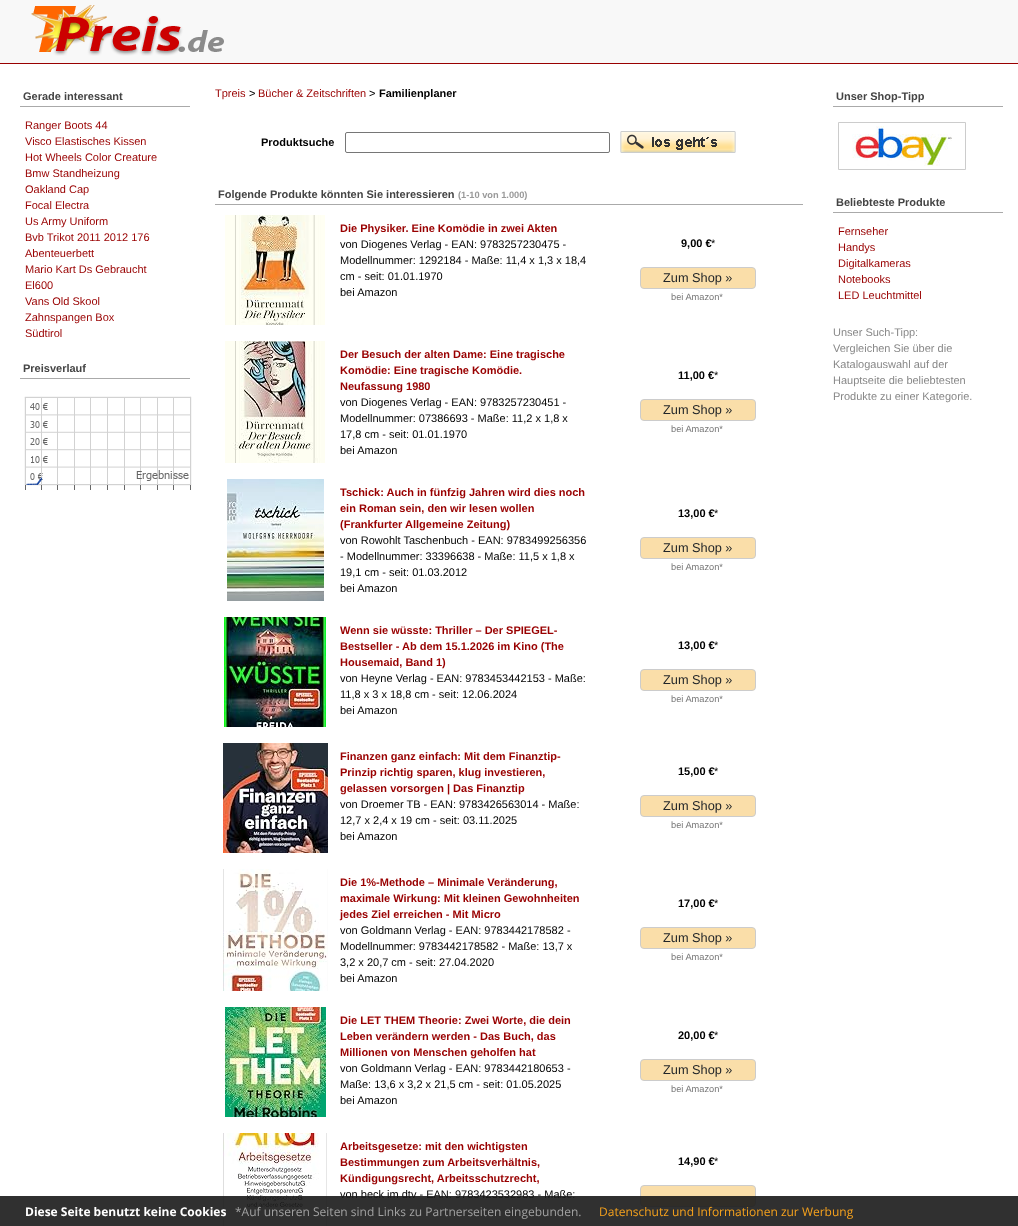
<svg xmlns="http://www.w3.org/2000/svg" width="1018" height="1226">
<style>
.a{font:bold 11px Liberation Sans;fill:#444}
.b{font:11px Liberation Sans;fill:#900}
.c{font:11px Liberation Sans;fill:#000}
.d{font:bold 11px Liberation Sans;fill:#000}
.e{font:bold 9.25px Liberation Sans;fill:#999}
.f{font:bold 11px Liberation Sans;fill:#900}
.g{font:12.75px Liberation Sans;fill:#212529}
.h{font:9.25px Liberation Sans;fill:#777}
.i{font:11px Liberation Sans;fill:#888}
.j{font:bold 12px Open Sans;fill:#fff}
.k{font:12px Open Sans;fill:#a2a2a2}
.l{font:12px Open Sans;fill:#f6a21d}
</style>
<rect width="100%" height="100%" fill="#fff"/>
<path fill="#f8f8f8" d="M0 0h1018v63H0z"/>
<path fill="#900" d="M0 63h1018v1H0z"/>
<image href="1.png" x="31" y="5" width="193" height="51"/>
<path fill="#aaa" d="M20 106h170v1H20z"/>
<path fill="#aaa" d="M20 378h170v1H20z"/>
<image href="2.png" x="24" y="396" width="168" height="94"/>
<rect fill="none" stroke="#767676" x="345.5" y="132.5" width="264" height="20" rx="1.5"/>
<image href="3.png" x="620" y="131" width="116" height="22"/>
<path fill="#aaa" d="M215 204h588v1H215z"/>
<image href="4.png" x="225" y="215" width="100" height="110"/>
<rect fill="#fadea9" stroke="#ccc" x="640.5" y="267.5" width="115" height="21" rx="3.5"/>
<image href="5.png" x="225" y="341" width="100" height="122"/>
<rect fill="#fadea9" stroke="#ccc" x="640.5" y="399.5" width="115" height="21" rx="3.5"/>
<image href="6.png" x="227" y="479" width="97" height="122"/>
<rect fill="#fadea9" stroke="#ccc" x="640.5" y="537.5" width="115" height="21" rx="3.5"/>
<image href="7.png" x="224" y="617" width="102" height="110"/>
<rect fill="#fadea9" stroke="#ccc" x="640.5" y="669.5" width="115" height="21" rx="3.5"/>
<image href="8.png" x="223" y="743" width="105" height="110"/>
<rect fill="#fadea9" stroke="#ccc" x="640.5" y="795.5" width="115" height="21" rx="3.5"/>
<image href="9.png" x="223" y="869" width="105" height="122"/>
<rect fill="#fadea9" stroke="#ccc" x="640.5" y="927.5" width="115" height="21" rx="3.5"/>
<image href="10.png" x="225" y="1007" width="101" height="110"/>
<rect fill="#fadea9" stroke="#ccc" x="640.5" y="1059.5" width="115" height="21" rx="3.5"/>
<image href="11.png" x="223" y="1133" width="104" height="93"/>
<rect fill="#fadea9" stroke="#ccc" x="640.5" y="1185.5" width="115" height="21" rx="3.5"/>
<path fill="#aaa" d="M833 106h170v1H833z"/>
<path fill="none" stroke="#ccc" d="M838.5 122.5h127v47H838.5z"/>
<image href="12.png" x="852" y="126" width="100" height="40"/>
<path fill="#aaa" d="M833 212h170v1H833z"/>
<text class="a" x="23" y="100">Gerade interessant</text>
<text class="b" x="25" y="129">Ranger Boots 44</text>
<text class="b" x="25" y="145">Visco Elastisches Kissen</text>
<text class="b" x="25" y="161">Hot Wheels Color Creature</text>
<text class="b" x="25" y="177">Bmw Standheizung</text>
<text class="b" x="25" y="193">Oakland Cap</text>
<text class="b" x="25" y="209">Focal Electra</text>
<text class="b" x="25" y="225">Us Army Uniform</text>
<text class="b" x="25" y="241">Bvb Trikot 2011 2012 176</text>
<text class="b" x="25" y="257">Abenteuerbett</text>
<text class="b" x="25" y="273">Mario Kart Ds Gebraucht</text>
<text class="b" x="25" y="289">El600</text>
<text class="b" x="25" y="305">Vans Old Skool</text>
<text class="b" x="25" y="321">Zahnspangen Box</text>
<text class="b" x="25" y="337">Südtirol</text>
<text class="a" x="23" y="372">Preisverlauf</text>
<text class="b" x="215" y="97">Tpreis</text>
<text class="c" x="249" y="97">&gt;</text>
<text class="b" x="258" y="97">Bücher &amp; Zeitschriften</text>
<text class="c" x="369" y="97">&gt;</text>
<text class="d" x="379" y="97">Familienplaner</text>
<text class="d" x="261" y="146">Produktsuche</text>
<text class="a" x="218" y="198">Folgende Produkte könnten Sie interessieren</text>
<text class="e" x="458" y="198">(1-10 von 1.000)</text>
<text class="f" x="340" y="232">Die Physiker. Eine Komödie in zwei Akten</text>
<text class="c" x="340" y="248">von Diogenes Verlag - EAN: 9783257230475 -</text>
<text class="c" x="340" y="264">Modellnummer: 1292184 - Maße: 11,4 x 1,3 x 18,4</text>
<text class="c" x="340" y="280">cm - seit: 01.01.1970</text>
<text class="c" x="340" y="296">bei Amazon</text>
<text class="d" x="681" y="247">9,00 €</text>
<text class="c" x="711" y="247">*</text>
<text class="g" x="663" y="282">Zum Shop »</text>
<text class="h" x="671" y="300">bei Amazon*</text>
<text class="f" x="340" y="358">Der Besuch der alten Dame: Eine tragische</text>
<text class="f" x="340" y="374">Komödie: Eine tragische Komödie.</text>
<text class="f" x="340" y="390">Neufassung 1980</text>
<text class="c" x="340" y="406">von Diogenes Verlag - EAN: 9783257230451 -</text>
<text class="c" x="340" y="422">Modellnummer: 07386693 - Maße: 11,2 x 1,8 x</text>
<text class="c" x="340" y="438">17,8 cm - seit: 01.01.1970</text>
<text class="c" x="340" y="454">bei Amazon</text>
<text class="d" x="678" y="379">11,00 €</text>
<text class="c" x="714" y="379">*</text>
<text class="g" x="663" y="414">Zum Shop »</text>
<text class="h" x="671" y="432">bei Amazon*</text>
<text class="f" x="340" y="496">Tschick: Auch in fünfzig Jahren wird dies noch</text>
<text class="f" x="340" y="512">ein Roman sein, den wir lesen wollen</text>
<text class="f" x="340" y="528">(Frankfurter Allgemeine Zeitung)</text>
<text class="c" x="340" y="544">von Rowohlt Taschenbuch - EAN: 9783499256356</text>
<text class="c" x="340" y="560">- Modellnummer: 33396638 - Maße: 11,5 x 1,8 x</text>
<text class="c" x="340" y="576">19,1 cm - seit: 01.03.2012</text>
<text class="c" x="340" y="592">bei Amazon</text>
<text class="d" x="678" y="517">13,00 €</text>
<text class="c" x="714" y="517">*</text>
<text class="g" x="663" y="552">Zum Shop »</text>
<text class="h" x="671" y="570">bei Amazon*</text>
<text class="f" x="340" y="634">Wenn sie wüsste: Thriller – Der SPIEGEL-</text>
<text class="f" x="340" y="650">Bestseller - Ab dem 15.1.2026 im Kino (The</text>
<text class="f" x="340" y="666">Housemaid, Band 1)</text>
<text class="c" x="340" y="682">von Heyne Verlag - EAN: 9783453442153 - Maße:</text>
<text class="c" x="340" y="698">11,8 x 3 x 18,8 cm - seit: 12.06.2024</text>
<text class="c" x="340" y="714">bei Amazon</text>
<text class="d" x="678" y="649">13,00 €</text>
<text class="c" x="714" y="649">*</text>
<text class="g" x="663" y="684">Zum Shop »</text>
<text class="h" x="671" y="702">bei Amazon*</text>
<text class="f" x="340" y="760">Finanzen ganz einfach: Mit dem Finanztip-</text>
<text class="f" x="340" y="776">Prinzip richtig sparen, klug investieren,</text>
<text class="f" x="340" y="792">gelassen vorsorgen | Das Finanztip</text>
<text class="c" x="340" y="808">von Droemer TB - EAN: 9783426563014 - Maße:</text>
<text class="c" x="340" y="824">12,7 x 2,4 x 19 cm - seit: 03.11.2025</text>
<text class="c" x="340" y="840">bei Amazon</text>
<text class="d" x="678" y="775">15,00 €</text>
<text class="c" x="714" y="775">*</text>
<text class="g" x="663" y="810">Zum Shop »</text>
<text class="h" x="671" y="828">bei Amazon*</text>
<text class="f" x="340" y="886">Die 1%-Methode – Minimale Veränderung,</text>
<text class="f" x="340" y="902">maximale Wirkung: Mit kleinen Gewohnheiten</text>
<text class="f" x="340" y="918">jedes Ziel erreichen - Mit Micro</text>
<text class="c" x="340" y="934">von Goldmann Verlag - EAN: 9783442178582 -</text>
<text class="c" x="340" y="950">Modellnummer: 9783442178582 - Maße: 13,7 x</text>
<text class="c" x="340" y="966">3,2 x 20,7 cm - seit: 27.04.2020</text>
<text class="c" x="340" y="982">bei Amazon</text>
<text class="d" x="678" y="907">17,00 €</text>
<text class="c" x="714" y="907">*</text>
<text class="g" x="663" y="942">Zum Shop »</text>
<text class="h" x="671" y="960">bei Amazon*</text>
<text class="f" x="340" y="1024">Die LET THEM Theorie: Zwei Worte, die dein</text>
<text class="f" x="340" y="1040">Leben verändern werden - Das Buch, das</text>
<text class="f" x="340" y="1056">Millionen von Menschen geholfen hat</text>
<text class="c" x="340" y="1072">von Goldmann Verlag - EAN: 9783442180653 -</text>
<text class="c" x="340" y="1088">Maße: 13,6 x 3,2 x 21,5 cm - seit: 01.05.2025</text>
<text class="c" x="340" y="1104">bei Amazon</text>
<text class="d" x="678" y="1039">20,00 €</text>
<text class="c" x="714" y="1039">*</text>
<text class="g" x="663" y="1074">Zum Shop »</text>
<text class="h" x="671" y="1092">bei Amazon*</text>
<text class="f" x="340" y="1150">Arbeitsgesetze: mit den wichtigsten</text>
<text class="f" x="340" y="1166">Bestimmungen zum Arbeitsverhältnis,</text>
<text class="f" x="340" y="1182">Kündigungsrecht, Arbeitsschutzrecht,</text>
<text class="c" x="340" y="1198">von beck im dtv - EAN: 9783423532983 - Maße:</text>
<text class="d" x="678" y="1165">14,90 €</text>
<text class="c" x="714" y="1165">*</text>
<text class="a" x="836" y="100">Unser Shop-Tipp</text>
<text class="a" x="836" y="206">Beliebteste Produkte</text>
<text class="b" x="838" y="235">Fernseher</text>
<text class="b" x="838" y="251">Handys</text>
<text class="b" x="838" y="267">Digitalkameras</text>
<text class="b" x="838" y="283">Notebooks</text>
<text class="b" x="838" y="299">LED Leuchtmittel</text>
<text class="i" x="833" y="336">Unser Such-Tipp:</text>
<text class="i" x="833" y="352">Vergleichen Sie über die</text>
<text class="i" x="833" y="368">Katalogauswahl auf der</text>
<text class="i" x="833" y="384">Hauptseite die beliebtesten</text>
<text class="i" x="833" y="400">Produkte zu einer Kategorie.</text>
<path fill="#191919e6" d="M0 1196h1018v30H0z"/>
<text class="j" x="25" y="1216">Diese Seite benutzt keine Cookies</text>
<text class="k" x="235" y="1216">*Auf unseren Seiten sind Links zu Partnerseiten eingebunden.</text>
<text class="l" x="599" y="1216">Datenschutz und Informationen zur Werbung</text>
</svg>
